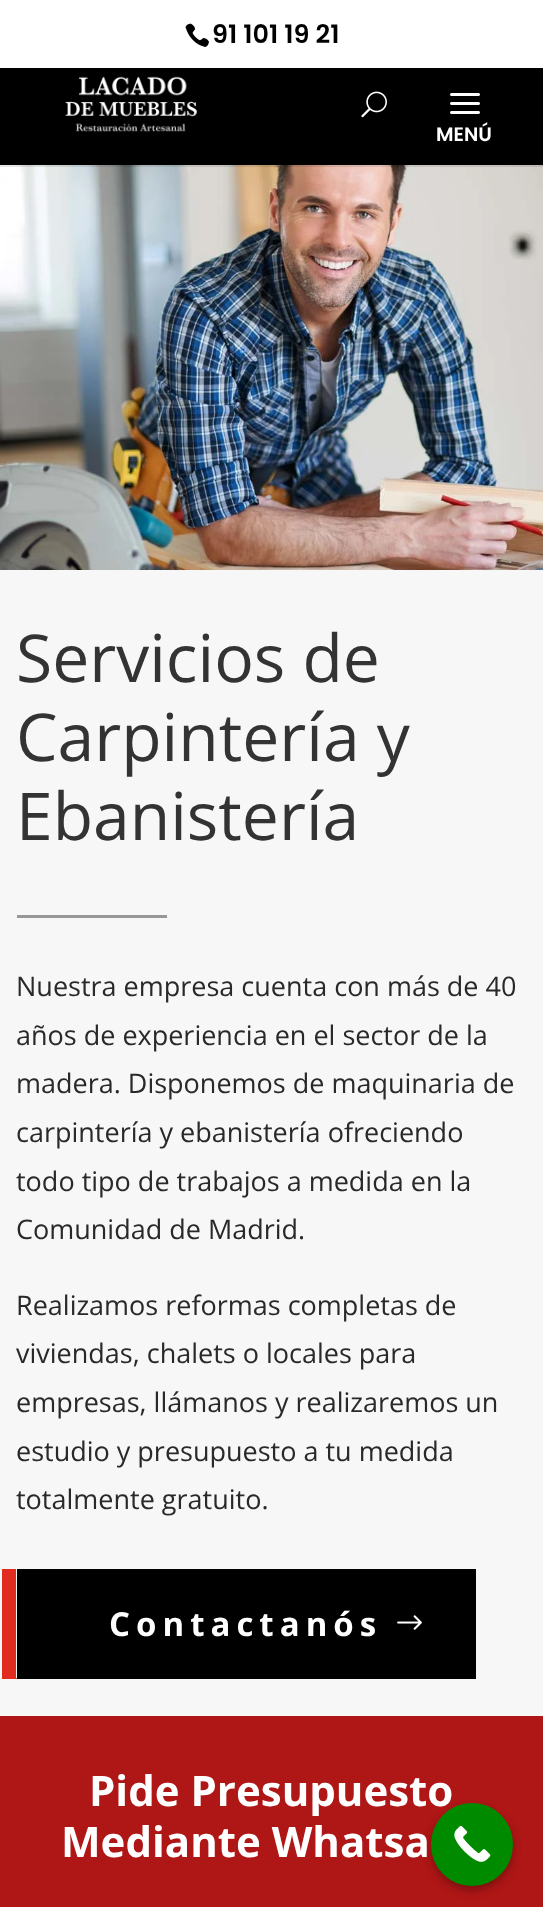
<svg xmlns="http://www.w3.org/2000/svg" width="543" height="1907">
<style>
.a{font:600 25.5px Poppins;fill:#000}
.b{font:600 19.5px Poppins;fill:#fff}
.c{font:66px Open Sans;fill:#333}
.d{font:27px Open Sans;fill:#292929}
.e{font:bold 33px Open Sans;letter-spacing:6px;fill:#fff}
.f{font:bold 42px Open Sans;fill:#fff}
</style>
<rect width="100%" height="100%" fill="#f7f7f7"/>
<path fill="#fff" d="M0 0h543v68H0z"/>
<image href="1.png" x="185" y="23" width="24" height="24"/>
<image href="5.png" x="0" y="165" width="543" height="405"/>
<path fill="#0000001a" d="M0 165h543v2H0z"/>
<path fill="#000" d="M0 68h543v97H0z"/>
<image href="2.png" x="65" y="76" width="132" height="56"/>
<image href="3.png" x="361" y="91" width="26" height="27"/>
<image href="4.png" x="450" y="93" width="30" height="21"/>
<path fill="#979797" d="M17 915h150v3H17z"/>
<path fill="#e02b20" d="M2 1569v110h459v-1h-445v-109z"/>
<path fill="#000" d="M17 1569h459v110H17z"/>
<image href="6.png" x="397" y="1615" width="25" height="15"/>
<path fill="#af1616" d="M0 1716h543v191H0z"/>
<rect fill="#0000004d" filter="blur(4.5px)" x="431" y="1808" width="82" height="82" rx="41"/>
<text class="a" x="212" y="43">91 101 19 21</text>
<text class="b" x="436" y="141">MENÚ</text>
<text class="c" x="16" y="682">Servicios de</text>
<text class="c" x="16" y="761">Carpintería y</text>
<text class="c" x="16" y="840">Ebanistería</text>
<text class="d" x="16" y="996">Nuestra empresa cuenta con más de 40</text>
<text class="d" x="16" y="1045">años de experiencia en el sector de la</text>
<text class="d" x="16" y="1093">madera. Disponemos de maquinaria de</text>
<text class="d" x="16" y="1142">carpintería y ebanistería ofreciendo</text>
<text class="d" x="16" y="1191">todo tipo de trabajos a medida en la</text>
<text class="d" x="16" y="1239">Comunidad de Madrid.</text>
<text class="d" x="16" y="1315">Realizamos reformas completas de</text>
<text class="d" x="16" y="1363">viviendas, chalets o locales para</text>
<text class="d" x="16" y="1412">empresas, llámanos y realizaremos un</text>
<text class="d" x="16" y="1461">estudio y presupuesto a tu medida</text>
<text class="d" x="16" y="1509">totalmente gratuito.</text>
<text class="e" x="109" y="1636">Contactanós</text>
<text class="f" x="89" y="1806">Pide Presupuesto</text>
<text class="f" x="61" y="1857">Mediante Whatsa</text>
<rect fill="#008a00" x="431" y="1803" width="82" height="83" rx="41"/>
<image href="7.png" x="454" y="1825" width="37" height="37"/>
</svg>
